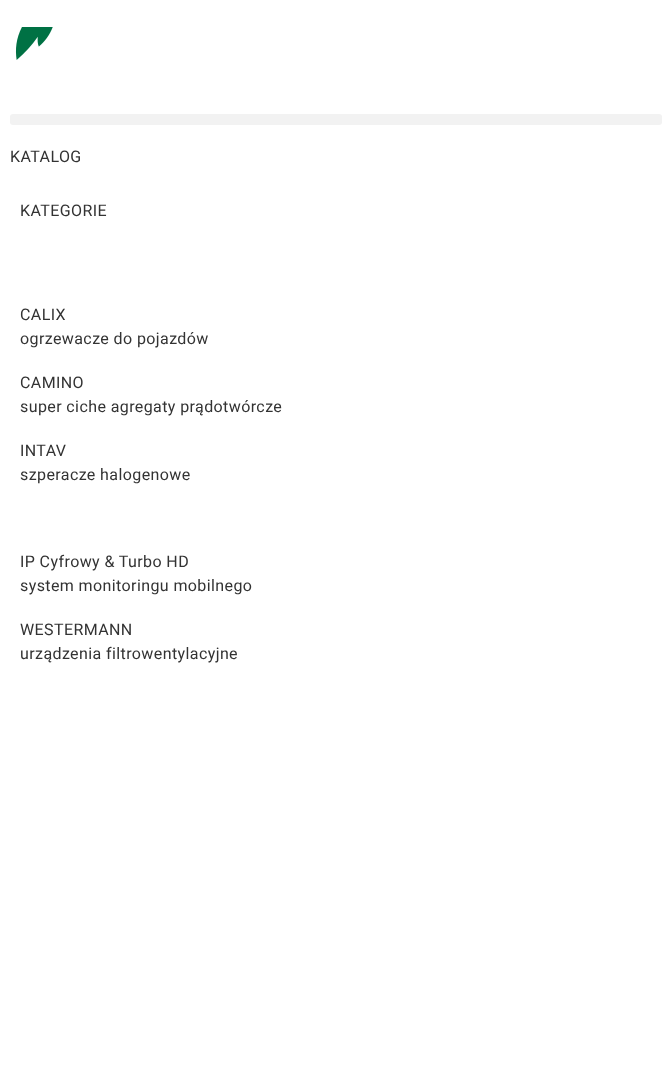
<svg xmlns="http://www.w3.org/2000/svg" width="672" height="1088">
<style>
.a{font:16px Roboto;letter-spacing:0.4px;fill:#333}
</style>
<rect width="100%" height="100%" fill="#fff"/>
<image href="1.png" x="15" y="27" width="38" height="33"/>
<rect fill="#f2f2f2" x="10" y="114" width="652" height="11" rx="3"/>
<text class="a" x="10" y="162">KATALOG</text>
<text class="a" x="20" y="216">KATEGORIE</text>
<text class="a" x="20" y="320">CALIX</text>
<text class="a" x="20" y="344">ogrzewacze do pojazdów</text>
<text class="a" x="20" y="388">CAMINO</text>
<text class="a" x="20" y="412">super ciche agregaty prądotwórcze</text>
<text class="a" x="20" y="456">INTAV</text>
<text class="a" x="20" y="480">szperacze halogenowe</text>
<text class="a" x="20" y="567">IP Cyfrowy &amp; Turbo HD</text>
<text class="a" x="20" y="591">system monitoringu mobilnego</text>
<text class="a" x="20" y="635">WESTERMANN</text>
<text class="a" x="20" y="659">urządzenia filtrowentylacyjne</text>
</svg>
